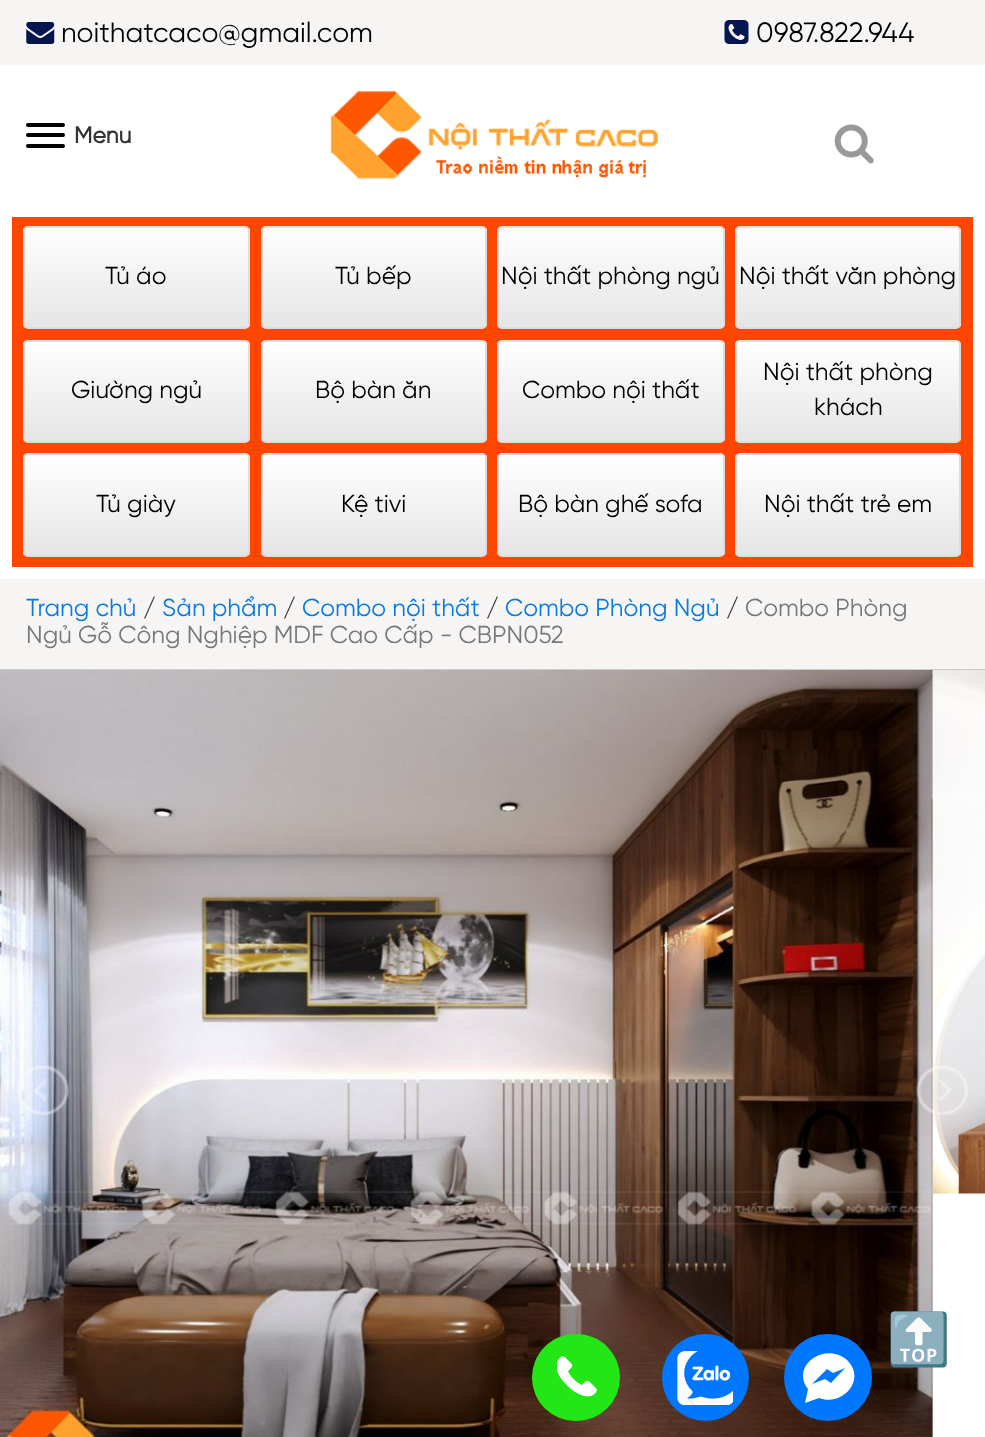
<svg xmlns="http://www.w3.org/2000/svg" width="985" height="1437">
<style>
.a{font:28px Gilroy;fill:#000}
.b{font:bold 23px Gilroy;fill:#333}
.c{font:24.5px Gilroy;fill:#000}
.d{font:24.5px Gilroy;fill:#067add}
.e{font:24.5px Gilroy;fill:#333}
.f{font:24.5px Gilroy;fill:#777}
.g{font:51px Noto Color Emoji;fill:#333}
</style>
<defs>
<clipPath id="clip1"><rect x="23" y="226" width="227" height="103" rx="5"/></clipPath>
<linearGradient id="g1" gradientUnits="userSpaceOnUse" x1="137" y1="228" x2="137" y2="327"><stop offset="0" stop-color="#fff"/><stop offset="1" stop-color="#e5e5e5"/></linearGradient>
<clipPath id="clip2"><rect x="261" y="226" width="226" height="103" rx="5"/></clipPath>
<linearGradient id="g2" gradientUnits="userSpaceOnUse" x1="374" y1="228" x2="374" y2="327"><stop offset="0" stop-color="#fff"/><stop offset="1" stop-color="#e5e5e5"/></linearGradient>
<clipPath id="clip3"><rect x="497" y="226" width="228" height="103" rx="5"/></clipPath>
<linearGradient id="g3" gradientUnits="userSpaceOnUse" x1="611" y1="228" x2="611" y2="327"><stop offset="0" stop-color="#fff"/><stop offset="1" stop-color="#e5e5e5"/></linearGradient>
<clipPath id="clip4"><rect x="735" y="226" width="226" height="103" rx="5"/></clipPath>
<linearGradient id="g4" gradientUnits="userSpaceOnUse" x1="848" y1="228" x2="848" y2="327"><stop offset="0" stop-color="#fff"/><stop offset="1" stop-color="#e5e5e5"/></linearGradient>
<clipPath id="clip5"><rect x="23" y="340" width="227" height="103" rx="5"/></clipPath>
<linearGradient id="g5" gradientUnits="userSpaceOnUse" x1="137" y1="341" x2="137" y2="441"><stop offset="0" stop-color="#fff"/><stop offset="1" stop-color="#e5e5e5"/></linearGradient>
<clipPath id="clip6"><rect x="261" y="340" width="226" height="103" rx="5"/></clipPath>
<linearGradient id="g6" gradientUnits="userSpaceOnUse" x1="374" y1="341" x2="374" y2="441"><stop offset="0" stop-color="#fff"/><stop offset="1" stop-color="#e5e5e5"/></linearGradient>
<clipPath id="clip7"><rect x="497" y="340" width="228" height="103" rx="5"/></clipPath>
<linearGradient id="g7" gradientUnits="userSpaceOnUse" x1="611" y1="341" x2="611" y2="441"><stop offset="0" stop-color="#fff"/><stop offset="1" stop-color="#e5e5e5"/></linearGradient>
<clipPath id="clip8"><rect x="735" y="340" width="226" height="103" rx="5"/></clipPath>
<linearGradient id="g8" gradientUnits="userSpaceOnUse" x1="848" y1="341" x2="848" y2="441"><stop offset="0" stop-color="#fff"/><stop offset="1" stop-color="#e5e5e5"/></linearGradient>
<clipPath id="clip9"><rect x="23" y="453" width="227" height="104" rx="5"/></clipPath>
<linearGradient id="g9" gradientUnits="userSpaceOnUse" x1="137" y1="455" x2="137" y2="555"><stop offset="0" stop-color="#fff"/><stop offset="1" stop-color="#e5e5e5"/></linearGradient>
<clipPath id="clip10"><rect x="261" y="453" width="226" height="104" rx="5"/></clipPath>
<linearGradient id="g10" gradientUnits="userSpaceOnUse" x1="374" y1="455" x2="374" y2="555"><stop offset="0" stop-color="#fff"/><stop offset="1" stop-color="#e5e5e5"/></linearGradient>
<clipPath id="clip11"><rect x="497" y="453" width="228" height="104" rx="5"/></clipPath>
<linearGradient id="g11" gradientUnits="userSpaceOnUse" x1="611" y1="455" x2="611" y2="555"><stop offset="0" stop-color="#fff"/><stop offset="1" stop-color="#e5e5e5"/></linearGradient>
<clipPath id="clip12"><rect x="735" y="453" width="226" height="104" rx="5"/></clipPath>
<linearGradient id="g12" gradientUnits="userSpaceOnUse" x1="848" y1="455" x2="848" y2="555"><stop offset="0" stop-color="#fff"/><stop offset="1" stop-color="#e5e5e5"/></linearGradient>
</defs>
<rect width="100%" height="100%" fill="#fff"/>
<path fill="#f7f4f4" d="M0 0h985v65H0z"/>
<image href="1.png" x="26" y="22" width="29" height="22"/>
<image href="2.png" x="724" y="20" width="25" height="24"/>
<rect fill="#000" x="26" y="123" width="39" height="4" rx="2"/>
<rect fill="#000" x="26" y="133" width="39" height="4" rx="2"/>
<rect fill="#000" x="26" y="144" width="39" height="4" rx="2"/>
<image href="3.png" x="330" y="91" width="328" height="88"/>
<image href="4.png" x="834" y="124" width="40" height="40"/>
<path fill="#ff4600" d="M12 217h961v350H12z"/>
<g clip-path="url(#clip1)">
<path fill="url(#g1)" d="M23 228h227v99H23z"/>
</g>
<rect fill="none" stroke="#ddd" stroke-width="2" x="24" y="227" width="225" height="101" rx="4"/>
<g clip-path="url(#clip2)">
<path fill="url(#g2)" d="M261 228h226v99H261z"/>
</g>
<rect fill="none" stroke="#ddd" stroke-width="2" x="262" y="227" width="224" height="101" rx="4"/>
<g clip-path="url(#clip3)">
<path fill="url(#g3)" d="M497 228h228v99H497z"/>
</g>
<rect fill="none" stroke="#ddd" stroke-width="2" x="498" y="227" width="226" height="101" rx="4"/>
<g clip-path="url(#clip4)">
<path fill="url(#g4)" d="M735 228h226v99H735z"/>
</g>
<rect fill="none" stroke="#ddd" stroke-width="2" x="736" y="227" width="224" height="101" rx="4"/>
<g clip-path="url(#clip5)">
<path fill="url(#g5)" d="M23 341h227v100H23z"/>
</g>
<rect fill="none" stroke="#ddd" stroke-width="2" x="24" y="341" width="225" height="101" rx="4"/>
<g clip-path="url(#clip6)">
<path fill="url(#g6)" d="M261 341h226v100H261z"/>
</g>
<rect fill="none" stroke="#ddd" stroke-width="2" x="262" y="341" width="224" height="101" rx="4"/>
<g clip-path="url(#clip7)">
<path fill="url(#g7)" d="M497 341h228v100H497z"/>
</g>
<rect fill="none" stroke="#ddd" stroke-width="2" x="498" y="341" width="226" height="101" rx="4"/>
<g clip-path="url(#clip8)">
<path fill="url(#g8)" d="M735 341h226v100H735z"/>
</g>
<rect fill="none" stroke="#ddd" stroke-width="2" x="736" y="341" width="224" height="101" rx="4"/>
<g clip-path="url(#clip9)">
<path fill="url(#g9)" d="M23 455h227v100H23z"/>
</g>
<rect fill="none" stroke="#ddd" stroke-width="2" x="24" y="454" width="225" height="102" rx="4"/>
<g clip-path="url(#clip10)">
<path fill="url(#g10)" d="M261 455h226v100H261z"/>
</g>
<rect fill="none" stroke="#ddd" stroke-width="2" x="262" y="454" width="224" height="102" rx="4"/>
<g clip-path="url(#clip11)">
<path fill="url(#g11)" d="M497 455h228v100H497z"/>
</g>
<rect fill="none" stroke="#ddd" stroke-width="2" x="498" y="454" width="226" height="102" rx="4"/>
<g clip-path="url(#clip12)">
<path fill="url(#g12)" d="M735 455h226v100H735z"/>
</g>
<rect fill="none" stroke="#ddd" stroke-width="2" x="736" y="454" width="224" height="102" rx="4"/>
<path fill="#f7f4f4" d="M0 579h985v90H0z"/>
<path fill="#ccc" d="M0 669h985v2H0z"/>
<image href="5.png" x="0" y="670" width="933" height="767"/>
<image href="6.png" x="933" y="670" width="52" height="524"/>
<image href="7.png" x="17" y="1065" width="52" height="50"/>
<image href="8.png" x="916" y="1066" width="52" height="49"/>
<rect fill="#22e616" x="532" y="1334" width="88" height="87" rx="43.5"/>
<image href="9.png" x="557" y="1356" width="40" height="41"/>
<circle fill="#07f" cx="705.5" cy="1377.5" r="43.5"/>
<image href="10.png" x="677" y="1351" width="56" height="54"/>
<rect fill="#07f" x="784" y="1334" width="88" height="87" rx="43.5"/>
<path fill="#fff" d="M847 1360c-22-19-57 6-39 29l-3 14l14-5c24 9 48-19 28-38zm-16 23l-6-4l-13 5l15-15l6 4l12-5z"/>
<text class="a" x="61" y="42">noithatcaco@gmail.com</text>
<text class="a" x="756" y="42">0987.822.944</text>
<text class="b" x="74" y="143">Menu</text>
<text class="c" x="105" y="284">Tủ áo</text>
<text class="c" x="335" y="284">Tủ bếp</text>
<text class="c" x="501" y="284">Nội thất phòng ngủ</text>
<text class="c" x="739" y="284">Nội thất văn phòng</text>
<text class="c" x="71" y="398">Giường ngủ</text>
<text class="c" x="315" y="398">Bộ bàn ăn</text>
<text class="c" x="522" y="398">Combo nội thất</text>
<text class="c" x="763" y="380">Nội thất phòng</text>
<text class="c" x="814" y="415">khách</text>
<text class="c" x="96" y="512">Tủ giày</text>
<text class="c" x="341" y="512">Kệ tivi</text>
<text class="c" x="518" y="512">Bộ bàn ghế sofa</text>
<text class="c" x="764" y="512">Nội thất trẻ em</text>
<text class="d" x="26" y="616">Trang chủ</text>
<text class="e" x="143" y="616">/</text>
<text class="d" x="162" y="616">Sản phẩm</text>
<text class="e" x="283" y="616">/</text>
<text class="d" x="302" y="616">Combo nội thất</text>
<text class="e" x="486" y="616">/</text>
<text class="d" x="505" y="616">Combo Phòng Ngủ</text>
<text class="e" x="726" y="616">/</text>
<text class="f" x="745" y="616">Combo Phòng</text>
<text class="f" x="26" y="643">Ngủ Gỗ Công Nghiệp MDF Cao Cấp - CBPN052</text>
<text class="g" x="887" y="1357">🔝</text>
</svg>
